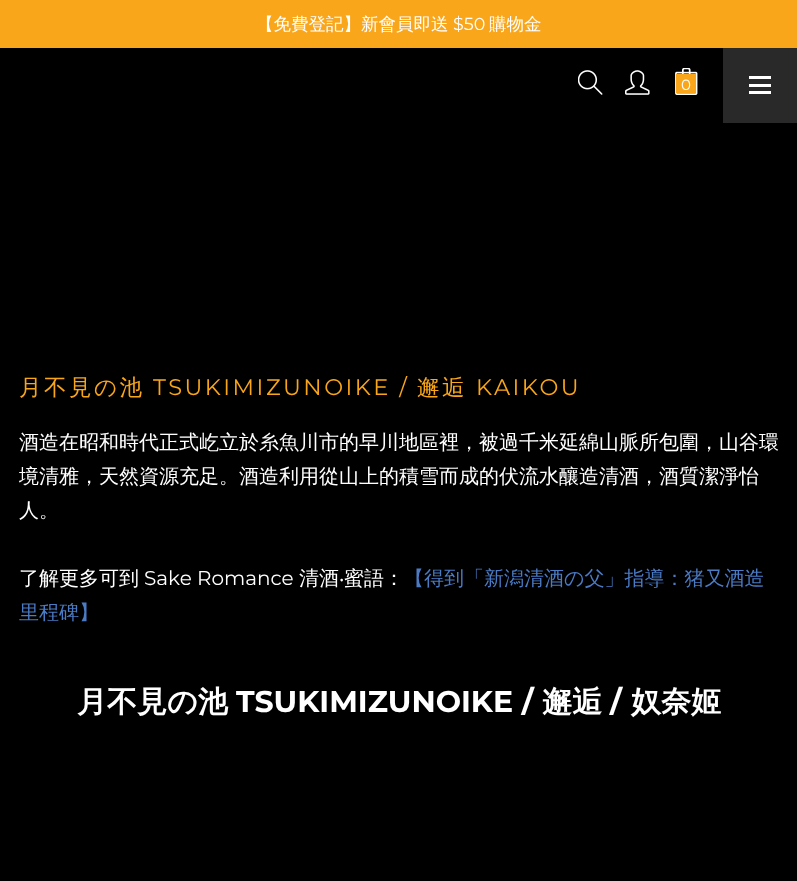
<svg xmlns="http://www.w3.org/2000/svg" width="797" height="881">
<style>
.a{font:500 17.5px WenQuanYi Zen Hei;fill:#fff}
.b{font:17.5px Montserrat;fill:#fff}
.c{font:15px Montserrat;fill:#fff}
.d{font:500 22.5px WenQuanYi Zen Hei;letter-spacing:2.5px;fill:#faa61a}
.e{font:22.5px Montserrat;letter-spacing:2.5px;fill:#faa61a}
.f{font:500 20px WenQuanYi Zen Hei;fill:#fff}
.g{font:20px Montserrat;fill:#fff}
.h{font:20px Noto Sans;fill:#fff}
.i{font:500 20px WenQuanYi Zen Hei;fill:#4b7bc5}
.j{font:bold 30px WenQuanYi Zen Hei;fill:#fff}
.k{font:bold 30px Montserrat;fill:#fff}
</style>
<rect width="100%" height="100%" fill="#000"/>
<path fill="#faa61a" d="M0 0h797v48H0z"/>
<image href="1.png" x="578" y="70" width="25" height="25"/>
<image href="2.png" x="625" y="70" width="25" height="25"/>
<image href="3.png" x="675" y="68" width="23" height="27"/>
<path fill="#faa61a" d="M676 74h20v19H676z"/>
<path fill="#292929" d="M723 48h74v75H723z"/>
<path fill="#fff" d="M749 84h22v3H749z"/>
<path fill="#fff" d="M749 76h22v3H749z"/>
<path fill="#fff" d="M749 91h22v3H749z"/>
<text class="a" x="256" y="30">【免費登記】新會員即送</text>
<text class="b" x="453" y="30">$50</text>
<text class="a" x="489" y="30">購物金</text>
<text class="c" x="681" y="90">0</text>
<text class="d" x="19" y="395">月不見の池</text>
<text class="e" x="153" y="395">TSUKIMIZUNOIKE /</text>
<text class="d" x="417" y="395">邂逅</text>
<text class="e" x="476" y="395">KAIKOU</text>
<text class="f" x="19" y="449">酒造在昭和時代正式屹立於糸魚川市的早川地區裡，被過千米延綿山脈所包圍，山谷環</text>
<text class="f" x="19" y="483">境清雅，天然資源充足。酒造利用從山上的積雪而成的伏流水釀造清酒，酒質潔淨怡</text>
<text class="f" x="19" y="517">人。</text>
<text class="f" x="19" y="585">了解更多可到</text>
<text class="g" x="144" y="585">Sake Romance</text>
<text class="f" x="299" y="585">清酒</text>
<text class="h" x="339" y="585">‧</text>
<text class="f" x="344" y="585">蜜語：</text>
<text class="i" x="404" y="585">【得到「新潟清酒の父」指導：猪又酒造</text>
<text class="i" x="19" y="619">里程碑】</text>
<text class="j" x="77" y="712">月不見の池</text>
<text class="k" x="236" y="712">TSUKIMIZUNOIKE /</text>
<text class="j" x="542" y="712">邂逅</text>
<text class="k" x="610" y="712">/</text>
<text class="j" x="631" y="712">奴奈姬</text>
</svg>
